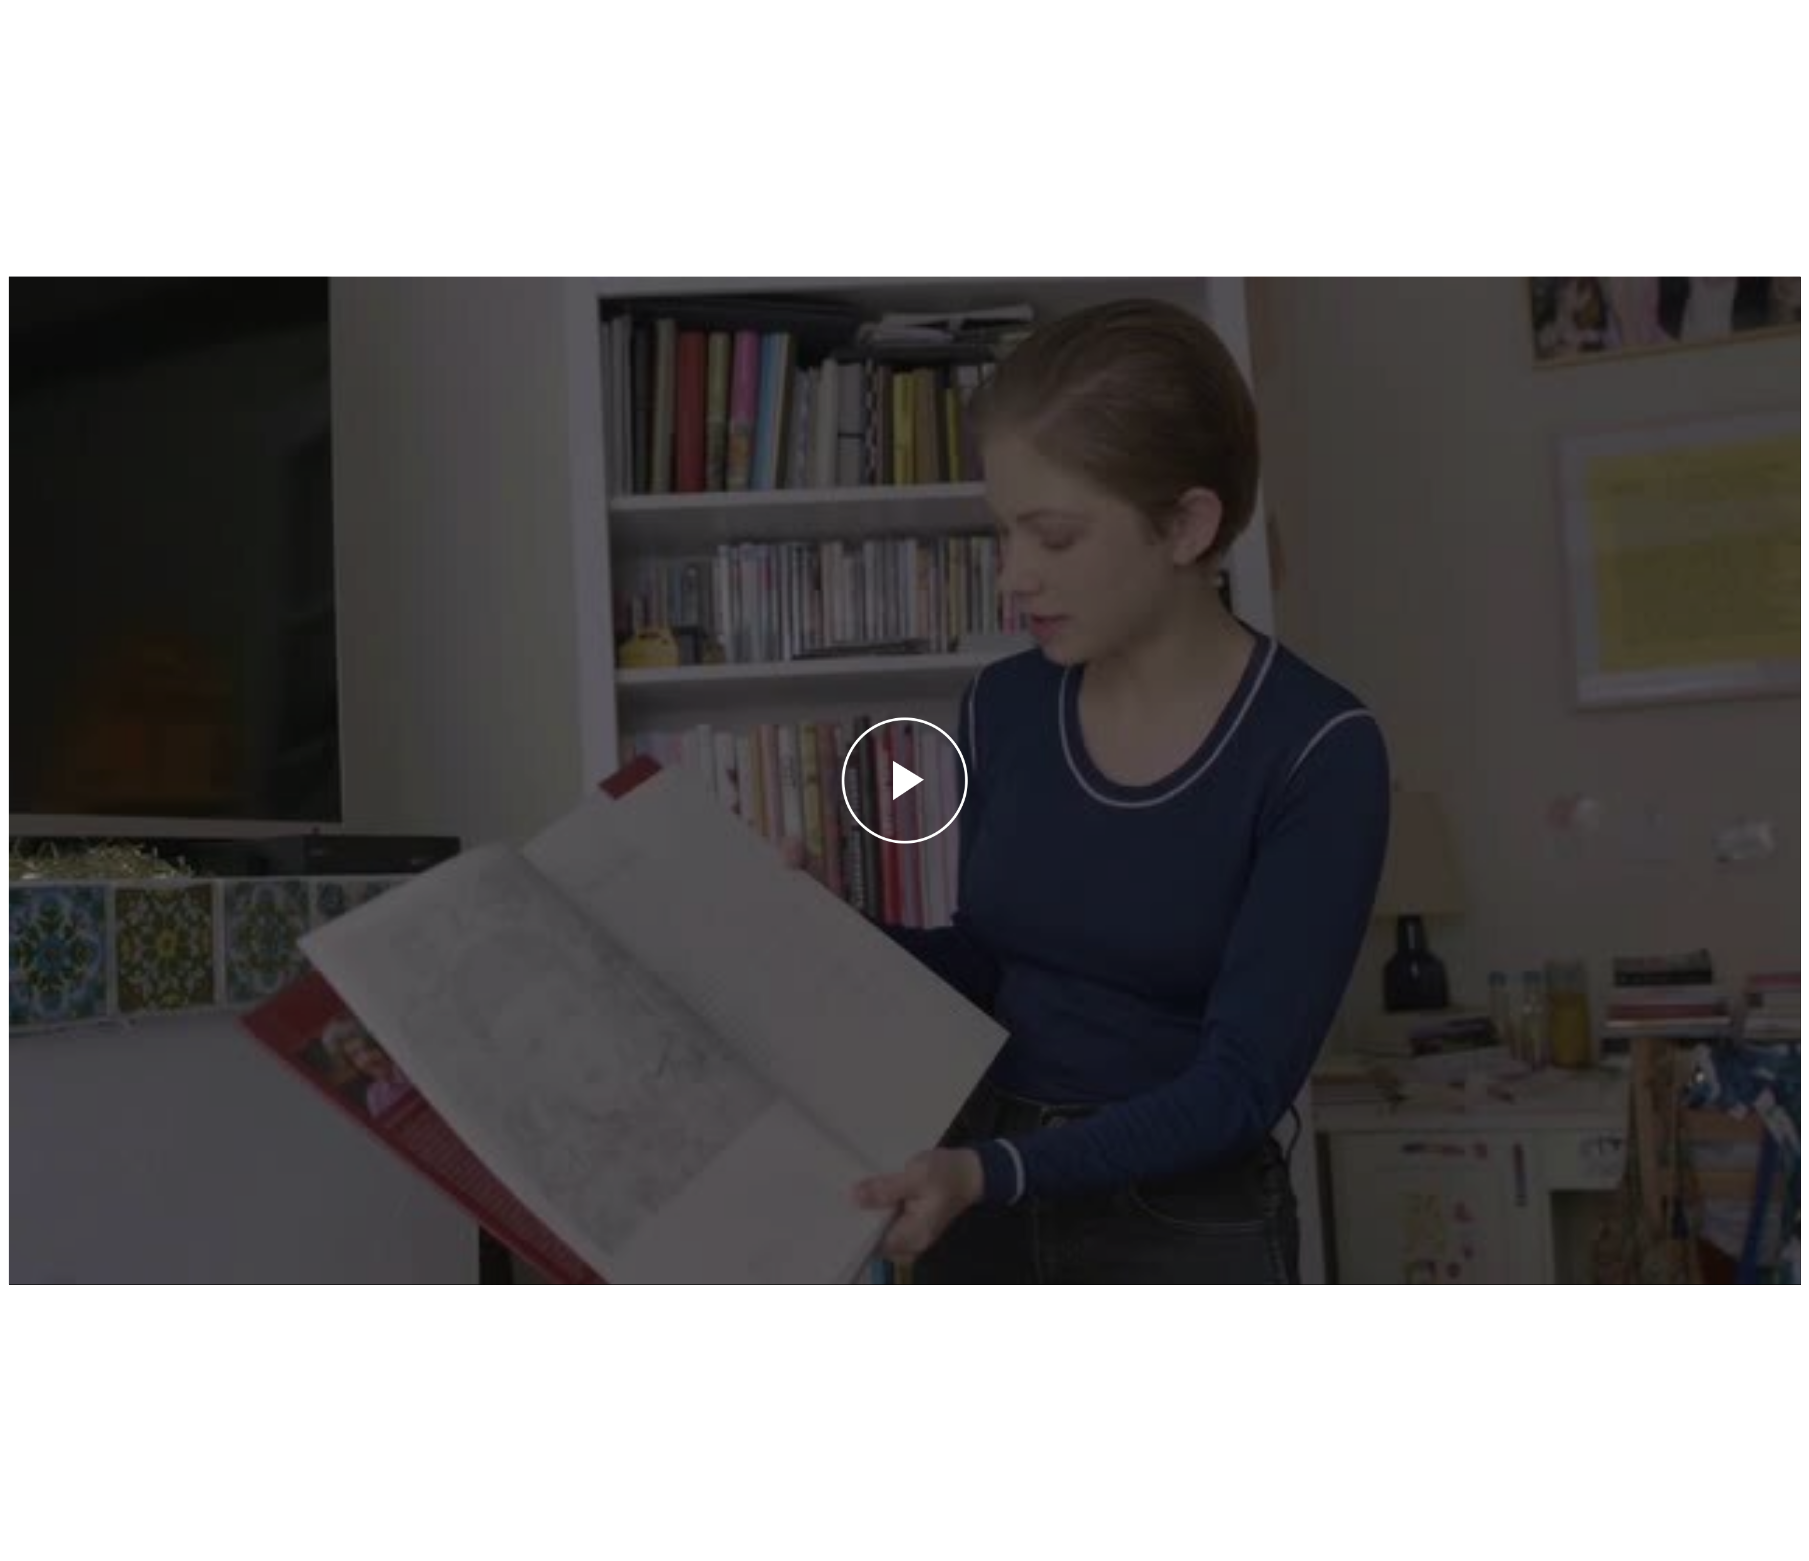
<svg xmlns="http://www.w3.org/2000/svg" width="1809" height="1561">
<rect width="100%" height="100%" fill="#fff"/>
<path fill="#000" d="M9 277h1792v1008H9z"/>
<image href="1.png" x="8" y="276" width="1793" height="1009"/>
<image href="2.png" x="8" y="276" width="1793" height="1009"/>
<image href="3.png" x="841" y="717" width="127" height="127"/>
</svg>
